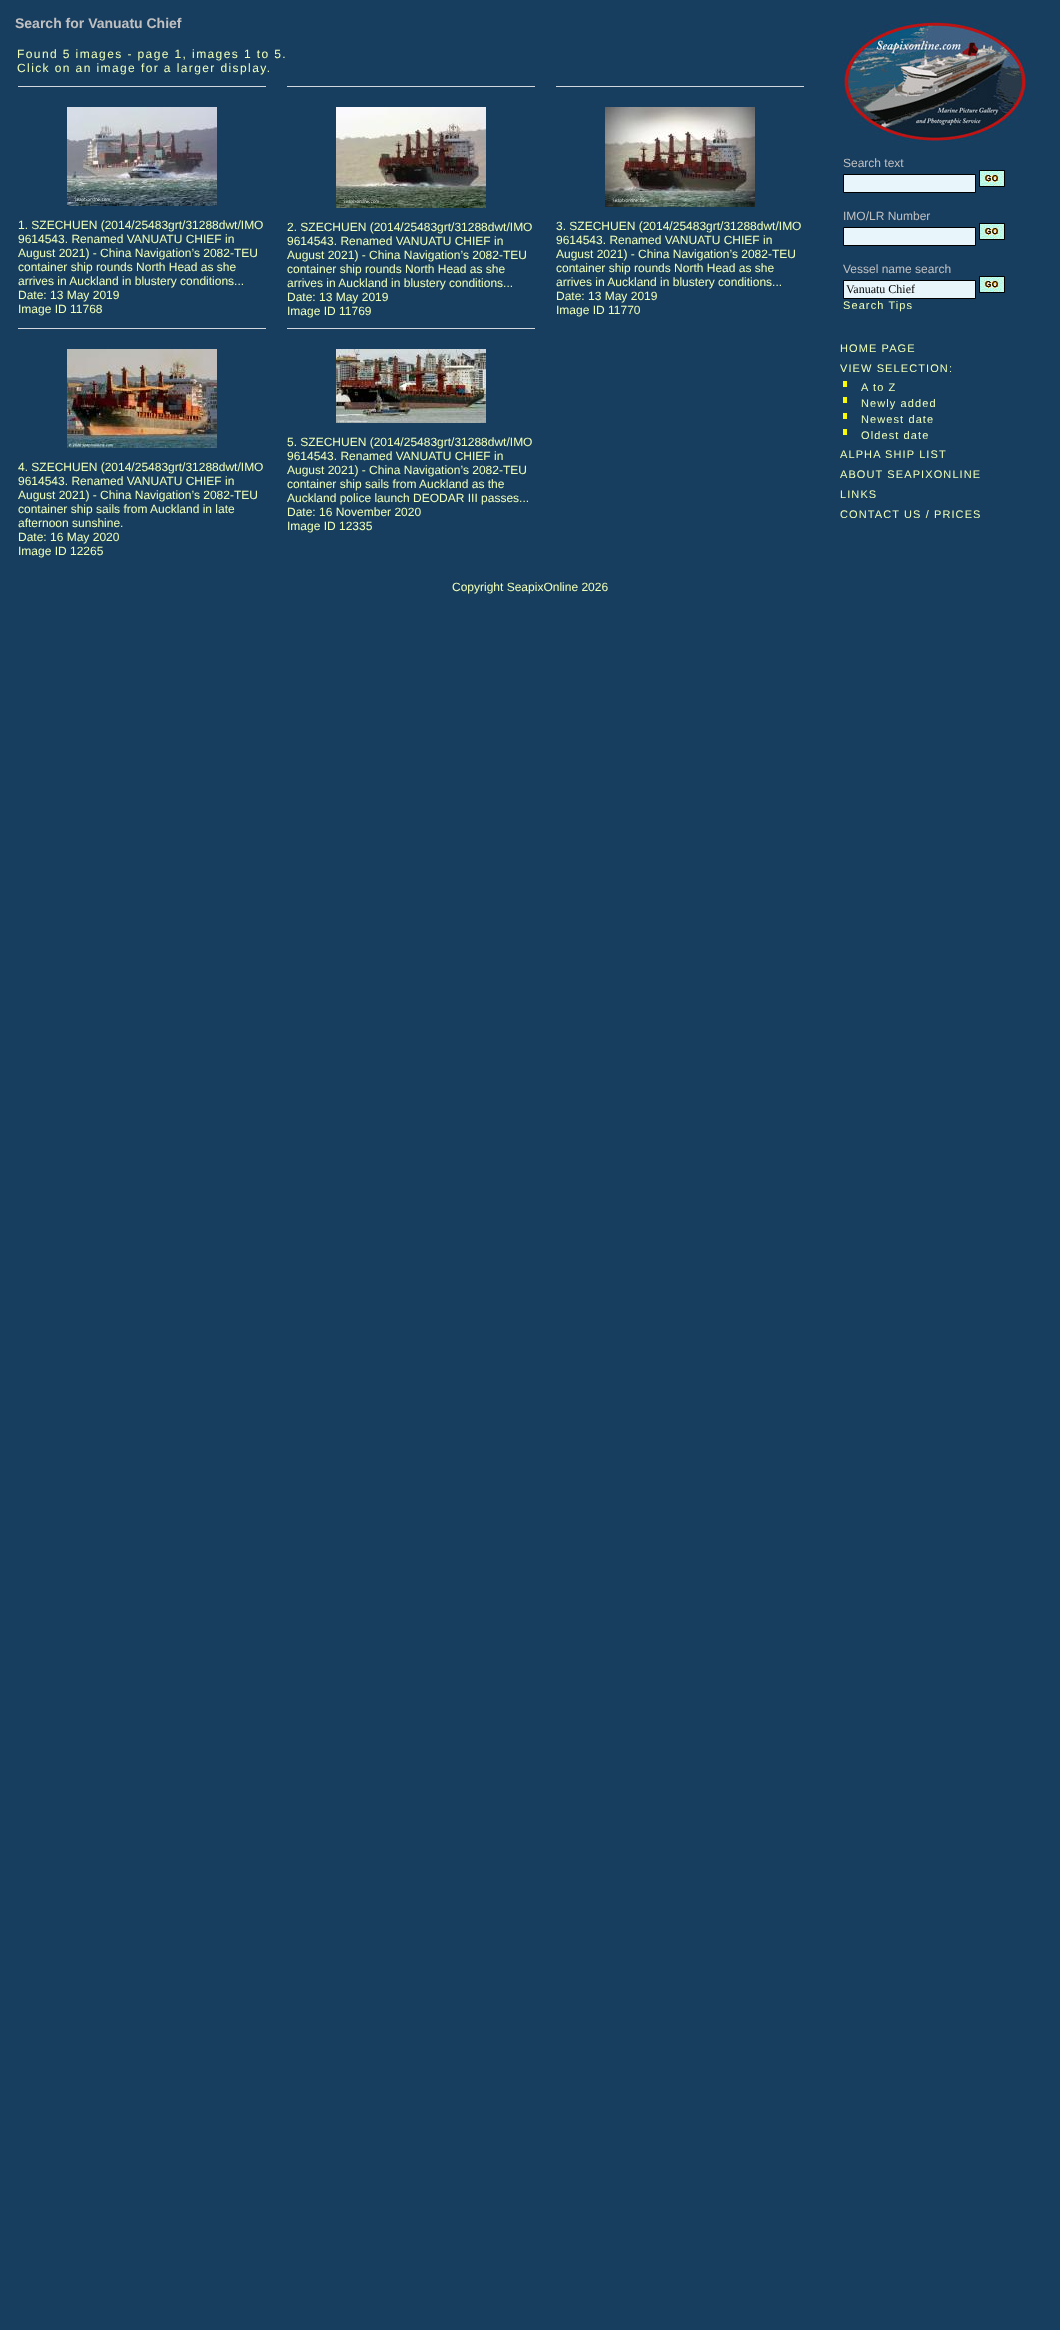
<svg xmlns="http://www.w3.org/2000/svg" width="1060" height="2330">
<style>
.a{font:bold 14px Liberation Sans;fill:#c0c0c0}
.b{font:12px Liberation Sans;letter-spacing:1.4px;fill:#efffb6}
.c{font:12px Liberation Sans;fill:#efffb6}
.d{font:12px Liberation Sans;fill:#c0c0c0}
.e{font:12px Liberation Serif;fill:#000}
.f{font:11px Liberation Sans;letter-spacing:1.1px;fill:#efffb6}
</style>
<rect width="100%" height="100%" fill="#173d5f"/>
<path fill="#d1d7dc" d="M18 86h248v1H18z"/>
<image href="1.png" x="67" y="107" width="150" height="99"/>
<path fill="#d1d7dc" d="M287 86h248v1H287z"/>
<image href="2.png" x="336" y="107" width="150" height="101"/>
<path fill="#d1d7dc" d="M556 86h248v1H556z"/>
<image href="3.png" x="605" y="107" width="150" height="100"/>
<path fill="#d1d7dc" d="M18 328h248v1H18z"/>
<image href="4.png" x="67" y="349" width="150" height="99"/>
<path fill="#d1d7dc" d="M287 328h248v1H287z"/>
<image href="5.png" x="336" y="349" width="150" height="74"/>
<image href="6.png" x="843" y="15" width="184" height="128"/>
<path fill="#e8f5fb" stroke="#000" d="M843.5 174.5h132v18H843.5z"/>
<path fill="none" stroke="#000" d="M979.5 170.5h25v16H979.5z"/>
<image href="7.png" x="980" y="171" width="24" height="15"/>
<path fill="#e8f5fb" stroke="#000" d="M843.5 227.5h132v18H843.5z"/>
<path fill="none" stroke="#000" d="M979.5 223.5h25v16H979.5z"/>
<image href="7.png" x="980" y="224" width="24" height="15"/>
<path fill="#e8f5fb" stroke="#000" d="M843.5 280.5h132v18H843.5z"/>
<path fill="none" stroke="#000" d="M979.5 276.5h25v16H979.5z"/>
<image href="7.png" x="980" y="277" width="24" height="15"/>
<path fill="#f9fa06" d="M843 381h4v6H843z"/>
<path fill="#f9fa06" d="M843 397h4v6H843z"/>
<path fill="#f9fa06" d="M843 413h4v6H843z"/>
<path fill="#f9fa06" d="M843 429h4v6H843z"/>
<text class="a" x="15" y="28">Search for Vanuatu Chief</text>
<text class="b" x="17" y="58">Found 5 images - page 1, images 1 to 5.</text>
<text class="b" x="17" y="72">Click on an image for a larger display.</text>
<text class="c" x="18" y="229">1. SZECHUEN (2014/25483grt/31288dwt/IMO</text>
<text class="c" x="18" y="243">9614543. Renamed VANUATU CHIEF in</text>
<text class="c" x="18" y="257">August 2021) - China Navigation’s 2082-TEU</text>
<text class="c" x="18" y="271">container ship rounds North Head as she</text>
<text class="c" x="18" y="285">arrives in Auckland in blustery conditions...</text>
<text class="c" x="18" y="299">Date: 13 May 2019</text>
<text class="c" x="18" y="313">Image ID 11768</text>
<text class="c" x="287" y="231">2. SZECHUEN (2014/25483grt/31288dwt/IMO</text>
<text class="c" x="287" y="245">9614543. Renamed VANUATU CHIEF in</text>
<text class="c" x="287" y="259">August 2021) - China Navigation’s 2082-TEU</text>
<text class="c" x="287" y="273">container ship rounds North Head as she</text>
<text class="c" x="287" y="287">arrives in Auckland in blustery conditions...</text>
<text class="c" x="287" y="301">Date: 13 May 2019</text>
<text class="c" x="287" y="315">Image ID 11769</text>
<text class="c" x="556" y="230">3. SZECHUEN (2014/25483grt/31288dwt/IMO</text>
<text class="c" x="556" y="244">9614543. Renamed VANUATU CHIEF in</text>
<text class="c" x="556" y="258">August 2021) - China Navigation’s 2082-TEU</text>
<text class="c" x="556" y="272">container ship rounds North Head as she</text>
<text class="c" x="556" y="286">arrives in Auckland in blustery conditions...</text>
<text class="c" x="556" y="300">Date: 13 May 2019</text>
<text class="c" x="556" y="314">Image ID 11770</text>
<text class="c" x="18" y="471">4. SZECHUEN (2014/25483grt/31288dwt/IMO</text>
<text class="c" x="18" y="485">9614543. Renamed VANUATU CHIEF in</text>
<text class="c" x="18" y="499">August 2021) - China Navigation’s 2082-TEU</text>
<text class="c" x="18" y="513">container ship sails from</text>
<text class="c" x="150" y="513">Auckland in late</text>
<text class="c" x="18" y="527">afternoon sunshine.</text>
<text class="c" x="18" y="541">Date: 16 May 2020</text>
<text class="c" x="18" y="555">Image ID 12265</text>
<text class="c" x="287" y="446">5. SZECHUEN (2014/25483grt/31288dwt/IMO</text>
<text class="c" x="287" y="460">9614543. Renamed VANUATU CHIEF in</text>
<text class="c" x="287" y="474">August 2021) - China Navigation’s 2082-TEU</text>
<text class="c" x="287" y="488">container ship sails from Auckland as the</text>
<text class="c" x="287" y="502">Auckland police launch DEODAR III passes...</text>
<text class="c" x="287" y="516">Date: 16 November 2020</text>
<text class="c" x="287" y="530">Image ID 12335</text>
<text class="d" x="843" y="167">Search text</text>
<text class="d" x="843" y="220">IMO/LR Number</text>
<text class="d" x="843" y="273">Vessel name search</text>
<text class="e" x="846" y="293">Vanuatu Chief</text>
<text class="f" x="843" y="309">Search Tips</text>
<text class="f" x="840" y="352">HOME PAGE</text>
<text class="f" x="840" y="372">VIEW SELECTION:</text>
<text class="f" x="861" y="391">A to Z</text>
<text class="f" x="861" y="407">Newly added</text>
<text class="f" x="861" y="423">Newest date</text>
<text class="f" x="861" y="439">Oldest date</text>
<text class="f" x="840" y="458">ALPHA SHIP LIST</text>
<text class="f" x="840" y="478">ABOUT SEAPIXONLINE</text>
<text class="f" x="840" y="498">LINKS</text>
<text class="f" x="840" y="518">CONTACT US / PRICES</text>
<text class="c" x="452" y="591">Copyright SeapixOnline 2026</text>
</svg>
